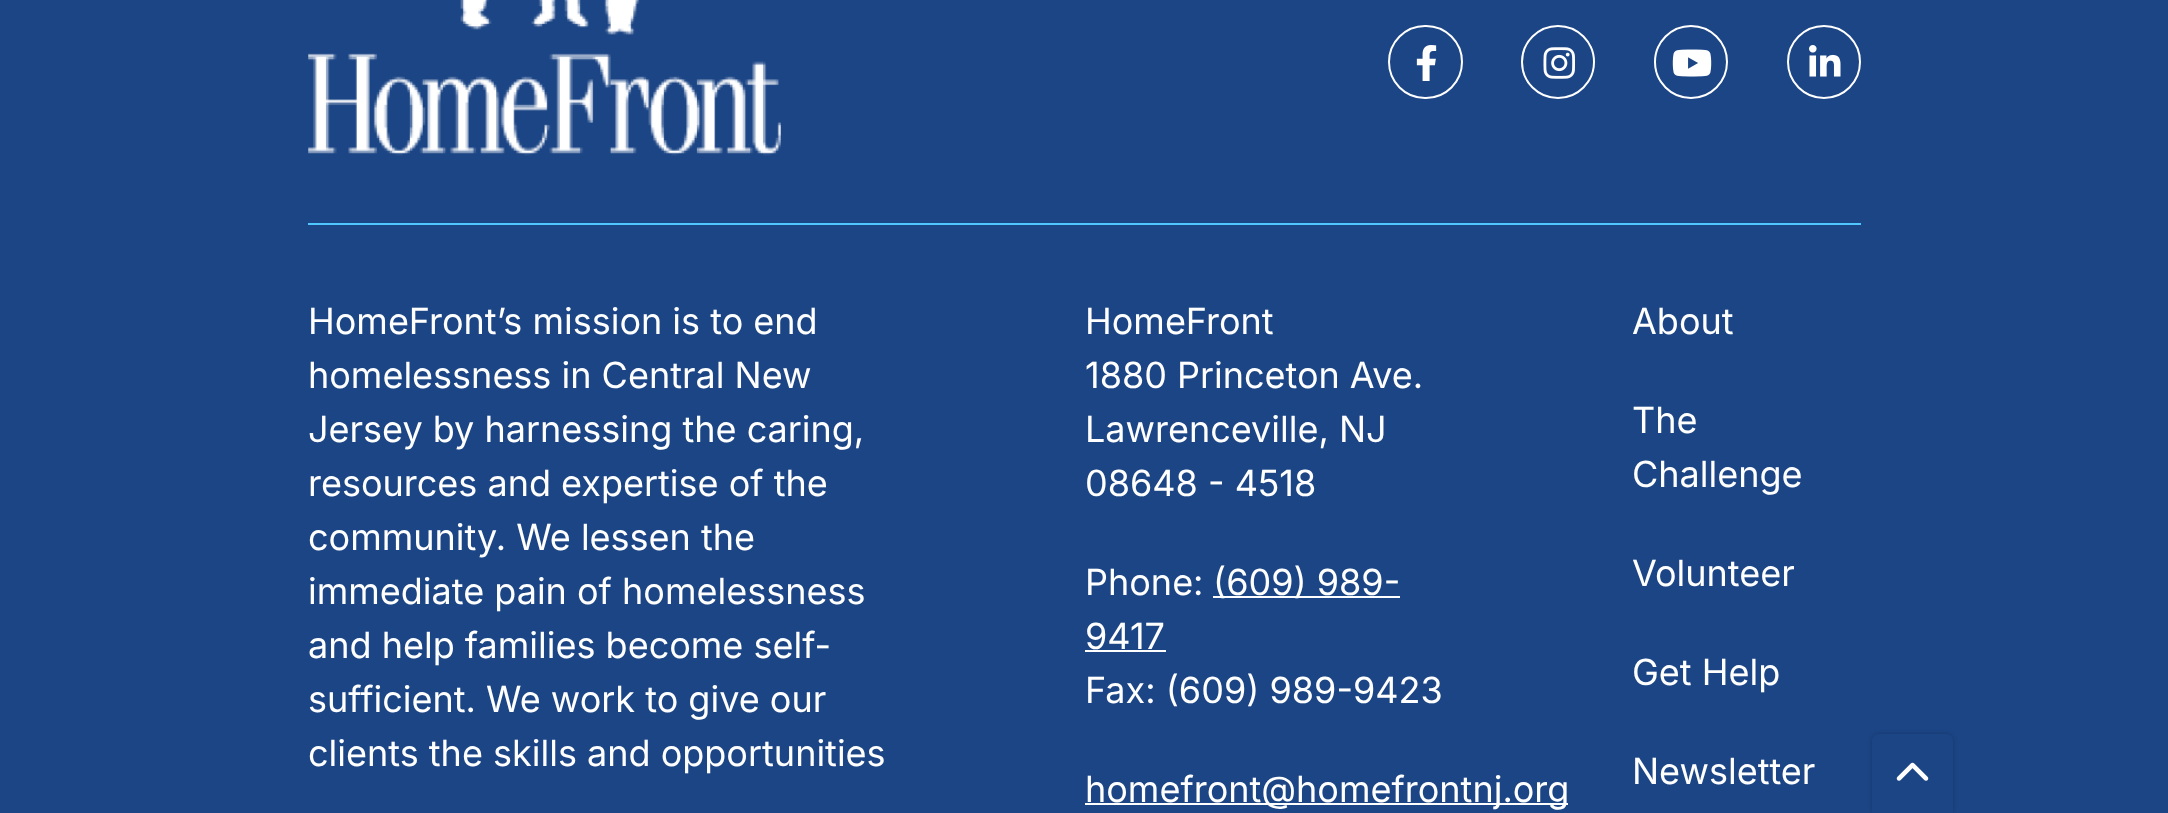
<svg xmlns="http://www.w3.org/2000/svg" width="2168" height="813">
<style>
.a{font:36px Inter;fill:#fff}
</style>
<defs>
<clipPath id="clip1"><path d="M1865 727h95v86h-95zm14 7h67c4 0 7 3 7 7v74h-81v-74c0-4 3-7 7-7z" clip-rule="evenodd"/></clipPath>
</defs>
<rect width="100%" height="100%" fill="#1c4585"/>
<path fill="#4fc7fc" d="M308 223h1553v2H308z"/>
<image href="1.png" x="308" y="0" width="473" height="156"/>
<rect fill="none" stroke="#fff" stroke-width="2" x="1389" y="26" width="73" height="72" rx="36"/>
<image href="2.png" x="1416" y="45" width="21" height="36"/>
<circle fill="none" stroke="#fff" stroke-width="2" cx="1558" cy="62" r="36"/>
<image href="3.png" x="1543" y="47" width="32" height="32"/>
<circle fill="none" stroke="#fff" stroke-width="2" cx="1691" cy="62" r="36"/>
<image href="4.png" x="1672" y="49" width="40" height="28"/>
<circle fill="none" stroke="#fff" stroke-width="2" cx="1824" cy="62" r="36"/>
<image href="5.png" x="1809" y="45" width="32" height="32"/>
<path fill="#fff" d="M1213 596h187v2H1213z"/>
<path fill="#fff" d="M1085 650h81v2H1085z"/>
<path fill="#fff" d="M1085 803h483v2H1085z"/>
<g clip-path="url(#clip1)">
<rect fill="#00000033" filter="blur(2px)" x="1872" y="734" width="81" height="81" rx="7"/>
</g>
<image href="6.png" x="1896" y="762" width="33" height="19"/>
<text class="a" x="308" y="334">HomeFront’s mission is to end</text>
<text class="a" x="308" y="388">homelessness in Central New</text>
<text class="a" x="308" y="442">Jersey by harnessing the caring,</text>
<text class="a" x="308" y="496">resources and expertise of the</text>
<text class="a" x="308" y="550">community. We lessen the</text>
<text class="a" x="308" y="604">immediate pain of homelessness</text>
<text class="a" x="308" y="658">and help families become self-</text>
<text class="a" x="308" y="712">sufficient. We work to give our</text>
<text class="a" x="308" y="766">clients the skills and opportunities</text>
<text class="a" x="1085" y="334">HomeFront</text>
<text class="a" x="1085" y="388">1880 Princeton Ave.</text>
<text class="a" x="1085" y="442">Lawrenceville, NJ</text>
<text class="a" x="1085" y="496">08648 - 4518</text>
<text class="a" x="1085" y="595">Phone:</text>
<text class="a" x="1213" y="595">(609) 989-</text>
<text class="a" x="1085" y="649">9417</text>
<text class="a" x="1085" y="703">Fax: (609) 989-9423</text>
<text class="a" x="1085" y="802">homefront@homefrontnj.org</text>
<text class="a" x="1632" y="334">About</text>
<text class="a" x="1632" y="433">The</text>
<text class="a" x="1632" y="487">Challenge</text>
<text class="a" x="1632" y="586">Volunteer</text>
<text class="a" x="1632" y="685">Get Help</text>
<text class="a" x="1632" y="784">Newsletter</text>
</svg>
